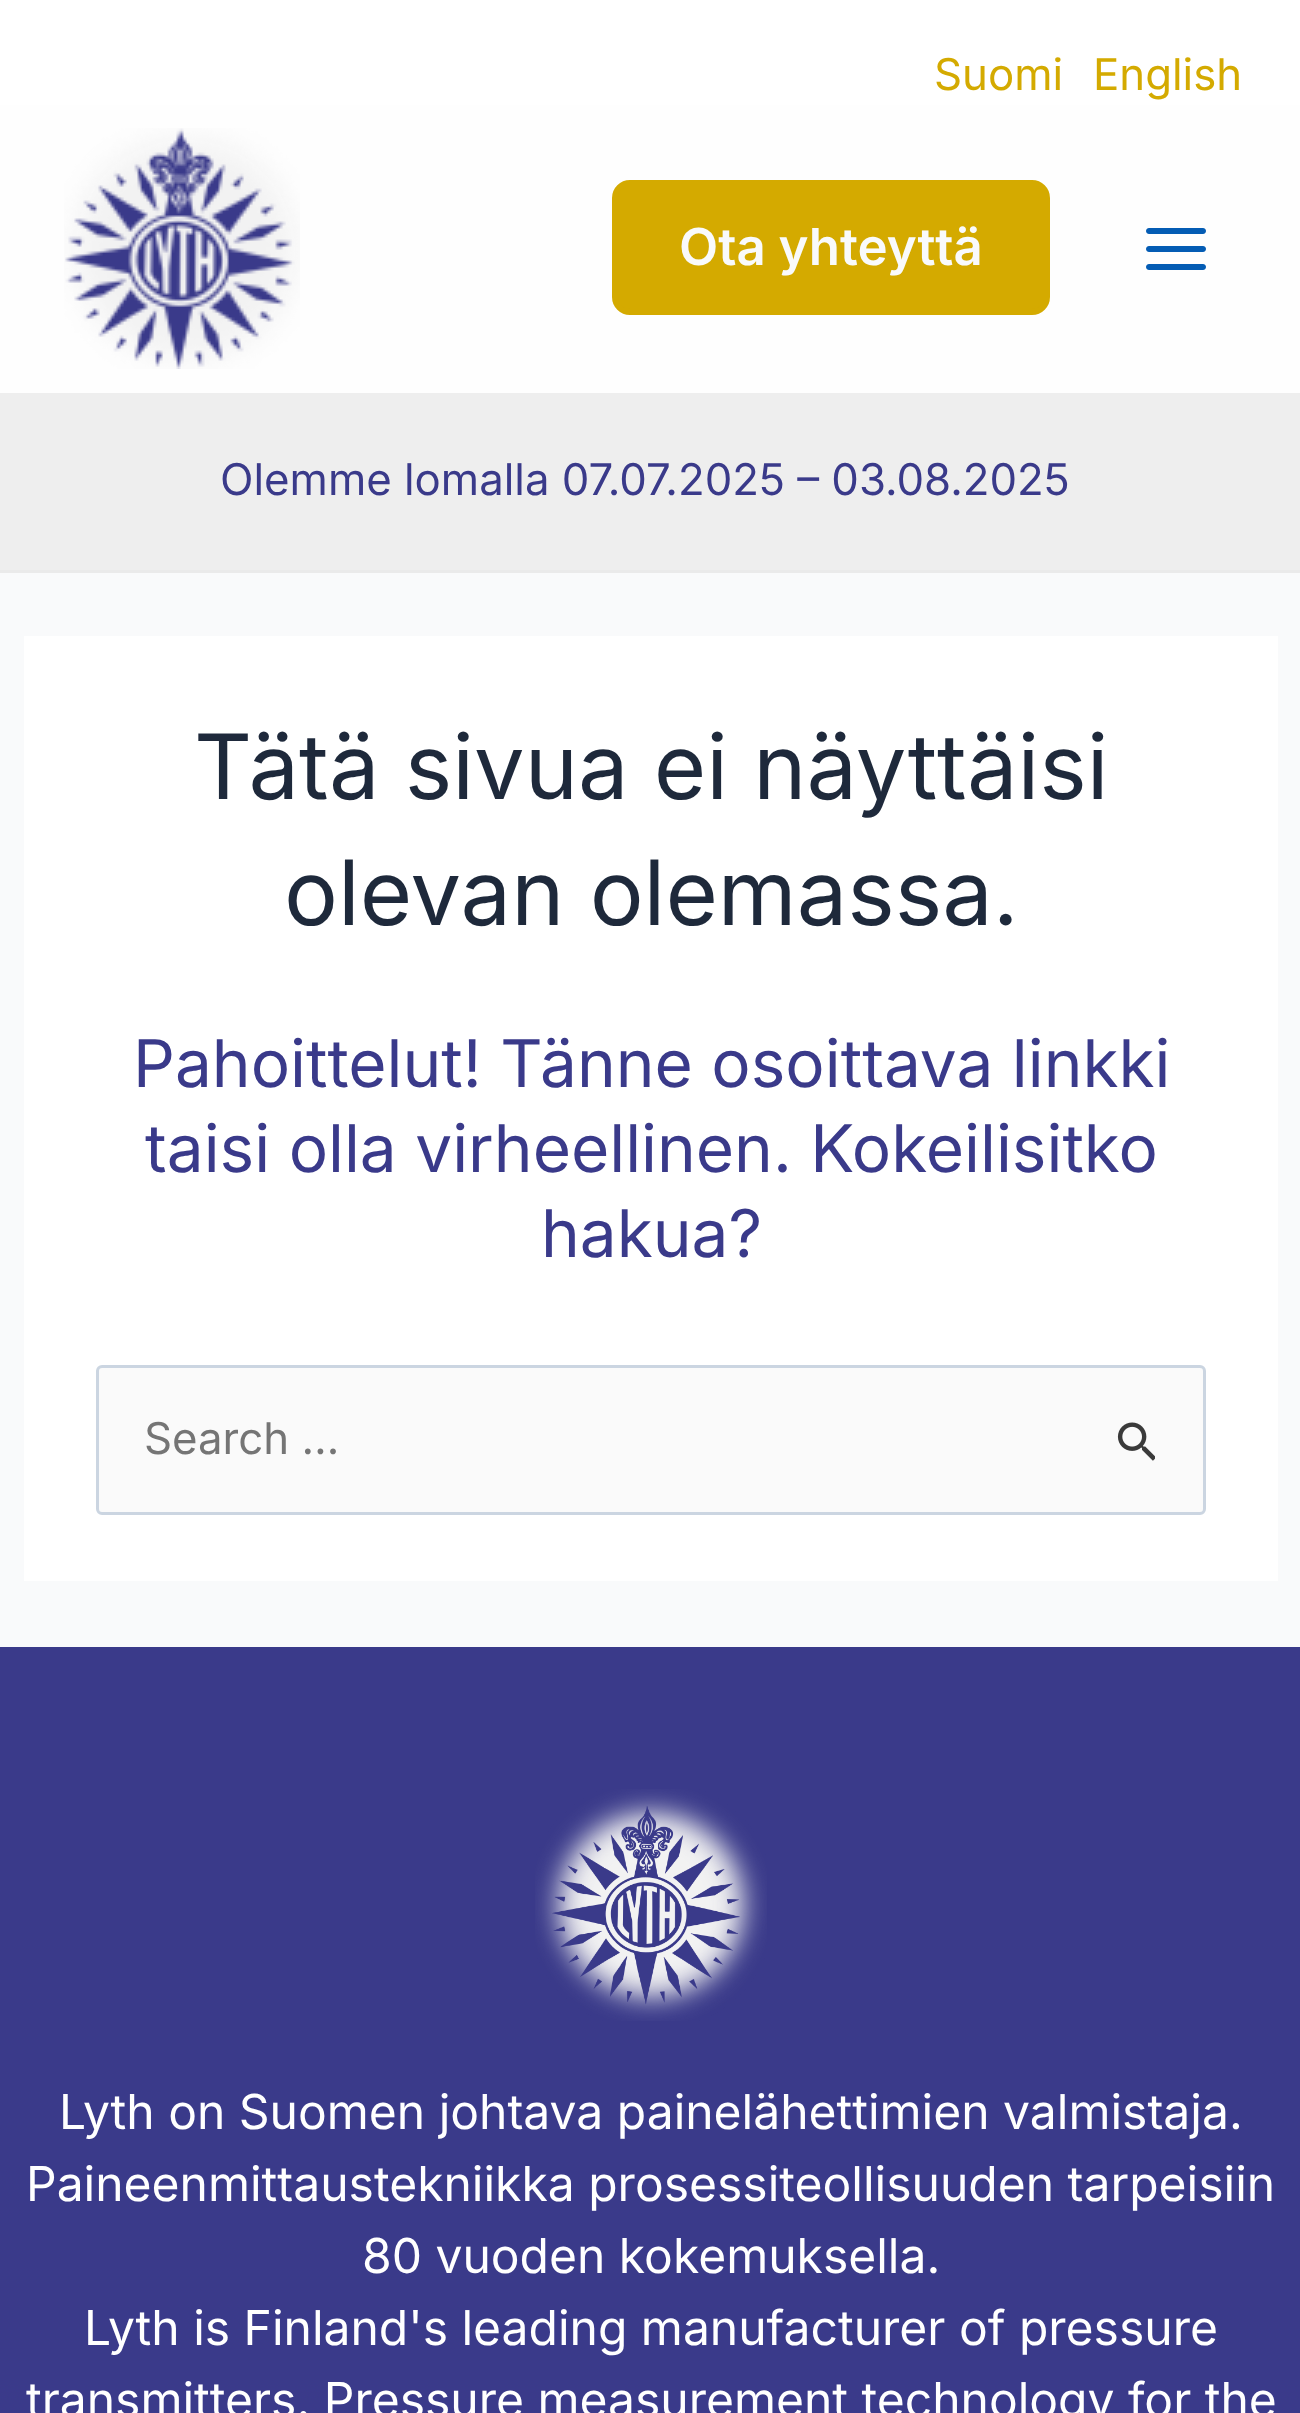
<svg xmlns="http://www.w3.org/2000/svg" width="1300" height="2413">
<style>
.a{font:43.75px Inter;fill:#d4aa00}
.b{font:600 51px Inter;fill:#f9fafb}
.c{font:43.75px Inter;fill:#3a3a8a}
.d{font:90px Inter;fill:#1e293b}
.e{font:65.7px Inter;fill:#3a3a8a}
.f{font:43.75px Inter;fill:#757575}
.g{font:48px Inter;fill:#fff}
</style>
<rect width="100%" height="100%" fill="#f9fafb"/>
<path fill="#fff" d="M0 0h1300v105H0z"/>
<path fill="#fefefe" d="M0 105h1300v288H0z"/>
<image href="1.png" x="64" y="128" width="236" height="241"/>
<rect fill="#d4aa00" stroke="#d4aa00" stroke-width="6" x="615" y="183" width="432" height="129" rx="15"/>
<image href="2.png" x="1146" y="228" width="60" height="42"/>
<path fill="#eee" d="M0 393h1300v177H0z"/>
<path fill="#eaeaea" d="M0 570h1300v3H0z"/>
<path fill="#fff" d="M24 636h1254v945H24z"/>
<rect fill="#fafafa" stroke="#cbd5e1" stroke-width="3" x="97.5" y="1366.5" width="1107" height="147" rx="4.5"/>
<image href="3.png" x="1117" y="1422" width="38" height="39"/>
<path fill="#3a3a8a" d="M0 1647h1300v766H0z"/>
<image href="4.png" x="535" y="1789" width="232" height="232"/>
<text class="a" x="934" y="90">Suomi</text>
<text class="a" x="1093" y="90">English</text>
<text class="b" x="679" y="265">Ota yhteyttä</text>
<text class="c" x="220" y="495">Olemme lomalla 07.07.2025 – 03.08.2025</text>
<text class="d" x="194" y="799">Tätä sivua ei näyttäisi</text>
<text class="d" x="284" y="925">olevan olemassa.</text>
<text class="e" x="133" y="1087">Pahoittelut! Tänne osoittava linkki</text>
<text class="e" x="145" y="1172">taisi olla virheellinen. Kokeilisitko</text>
<text class="e" x="541" y="1257">hakua?</text>
<text class="f" x="144" y="1454">Search …</text>
<text class="g" x="59" y="2129">Lyth on Suomen johtava painelähettimien valmistaja.</text>
<text class="g" x="26" y="2201">Paineenmittaustekniikka prosessiteollisuuden tarpeisiin</text>
<text class="g" x="362" y="2273">80 vuoden kokemuksella.</text>
<text class="g" x="84" y="2345">Lyth is Finland's leading manufacturer of pressure</text>
<text class="g" x="26" y="2417">transmitters. Pressure measurement technology for the</text>
</svg>
